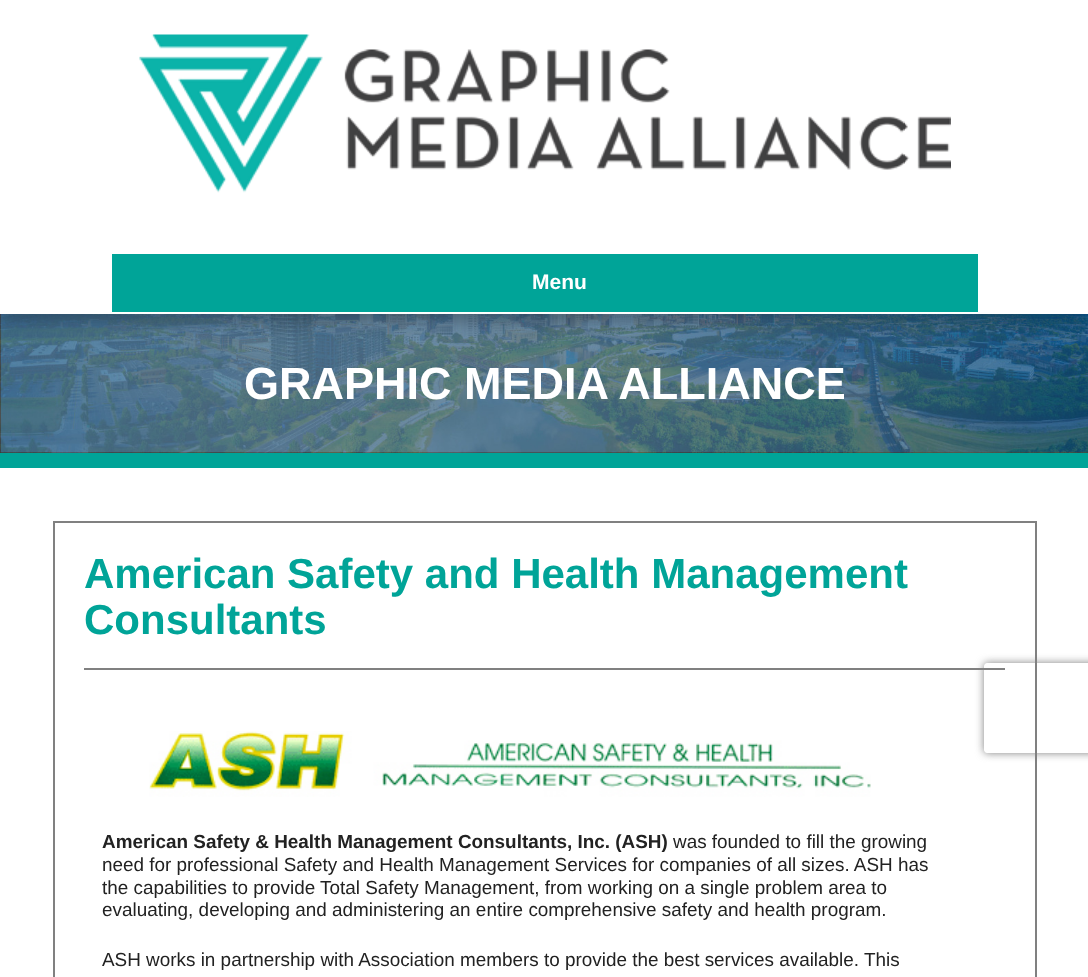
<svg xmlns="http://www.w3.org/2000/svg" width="1088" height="977">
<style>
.a{font:bold 21px Liberation Sans;fill:#fff}
.b{font:bold 45px Liberation Sans;fill:#fff}
.c{font:bold 42px Liberation Sans;fill:#00a498}
.d{font:bold 18.9px Liberation Sans;fill:#222}
.e{font:18.9px Liberation Sans;fill:#222}
</style>
<defs>
<clipPath id="clip1"><path d="M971 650h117v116h-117zm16 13h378c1.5 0 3 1.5 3 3v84c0 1.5-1.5 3-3 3h-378c-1.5 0-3-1.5-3-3v-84c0-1.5 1.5-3 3-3z" clip-rule="evenodd"/></clipPath>
</defs>
<rect width="100%" height="100%" fill="#fff"/>
<image href="2.png" x="0" y="314" width="1088" height="139"/>
<path fill="#00000026" filter="blur(11px)" d="M0 6h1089v314H0z"/>
<path fill="#0000002e" filter="blur(8px)" d="M0 8h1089v313H0z"/>
<path fill="#fff" d="M0 0h1088v314H0z"/>
<image href="1.png" x="139" y="34" width="812" height="159"/>
<path fill="#00a498" d="M112 254h866v58H112z"/>
<path fill="#00a498" d="M0 453h1088v15H0z"/>
<path fill="none" stroke="#808080" stroke-width="2" d="M54 522h982v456H54z"/>
<path fill="#808080" d="M84 668h921v2H84z"/>
<g clip-path="url(#clip1)">
<rect fill="#808080" filter="blur(4px)" x="984" y="663" width="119" height="90" rx="3"/>
</g>
<image href="3.png" x="149" y="731" width="722" height="66"/>
<text class="a" x="532" y="289">Menu</text>
<text class="b" x="244" y="399">GRAPHIC MEDIA ALLIANCE</text>
<text class="c" x="84" y="588">American Safety and Health Management</text>
<text class="c" x="84" y="634">Consultants</text>
<text class="d" x="102" y="848">American Safety &amp; Health Management Consultants, Inc. (ASH)</text>
<text class="e" x="673" y="848">was founded to fill the growing</text>
<text class="e" x="102" y="871">need for professional Safety and Health Management Services for companies of all sizes. ASH has</text>
<text class="e" x="102" y="894">the capabilities to provide Total Safety Management, from working on a single problem area to</text>
<text class="e" x="102" y="916">evaluating, developing and administering an entire comprehensive safety and health program.</text>
<text class="e" x="102" y="966">ASH works in partnership with Association members to provide the best services available. This</text>
</svg>
